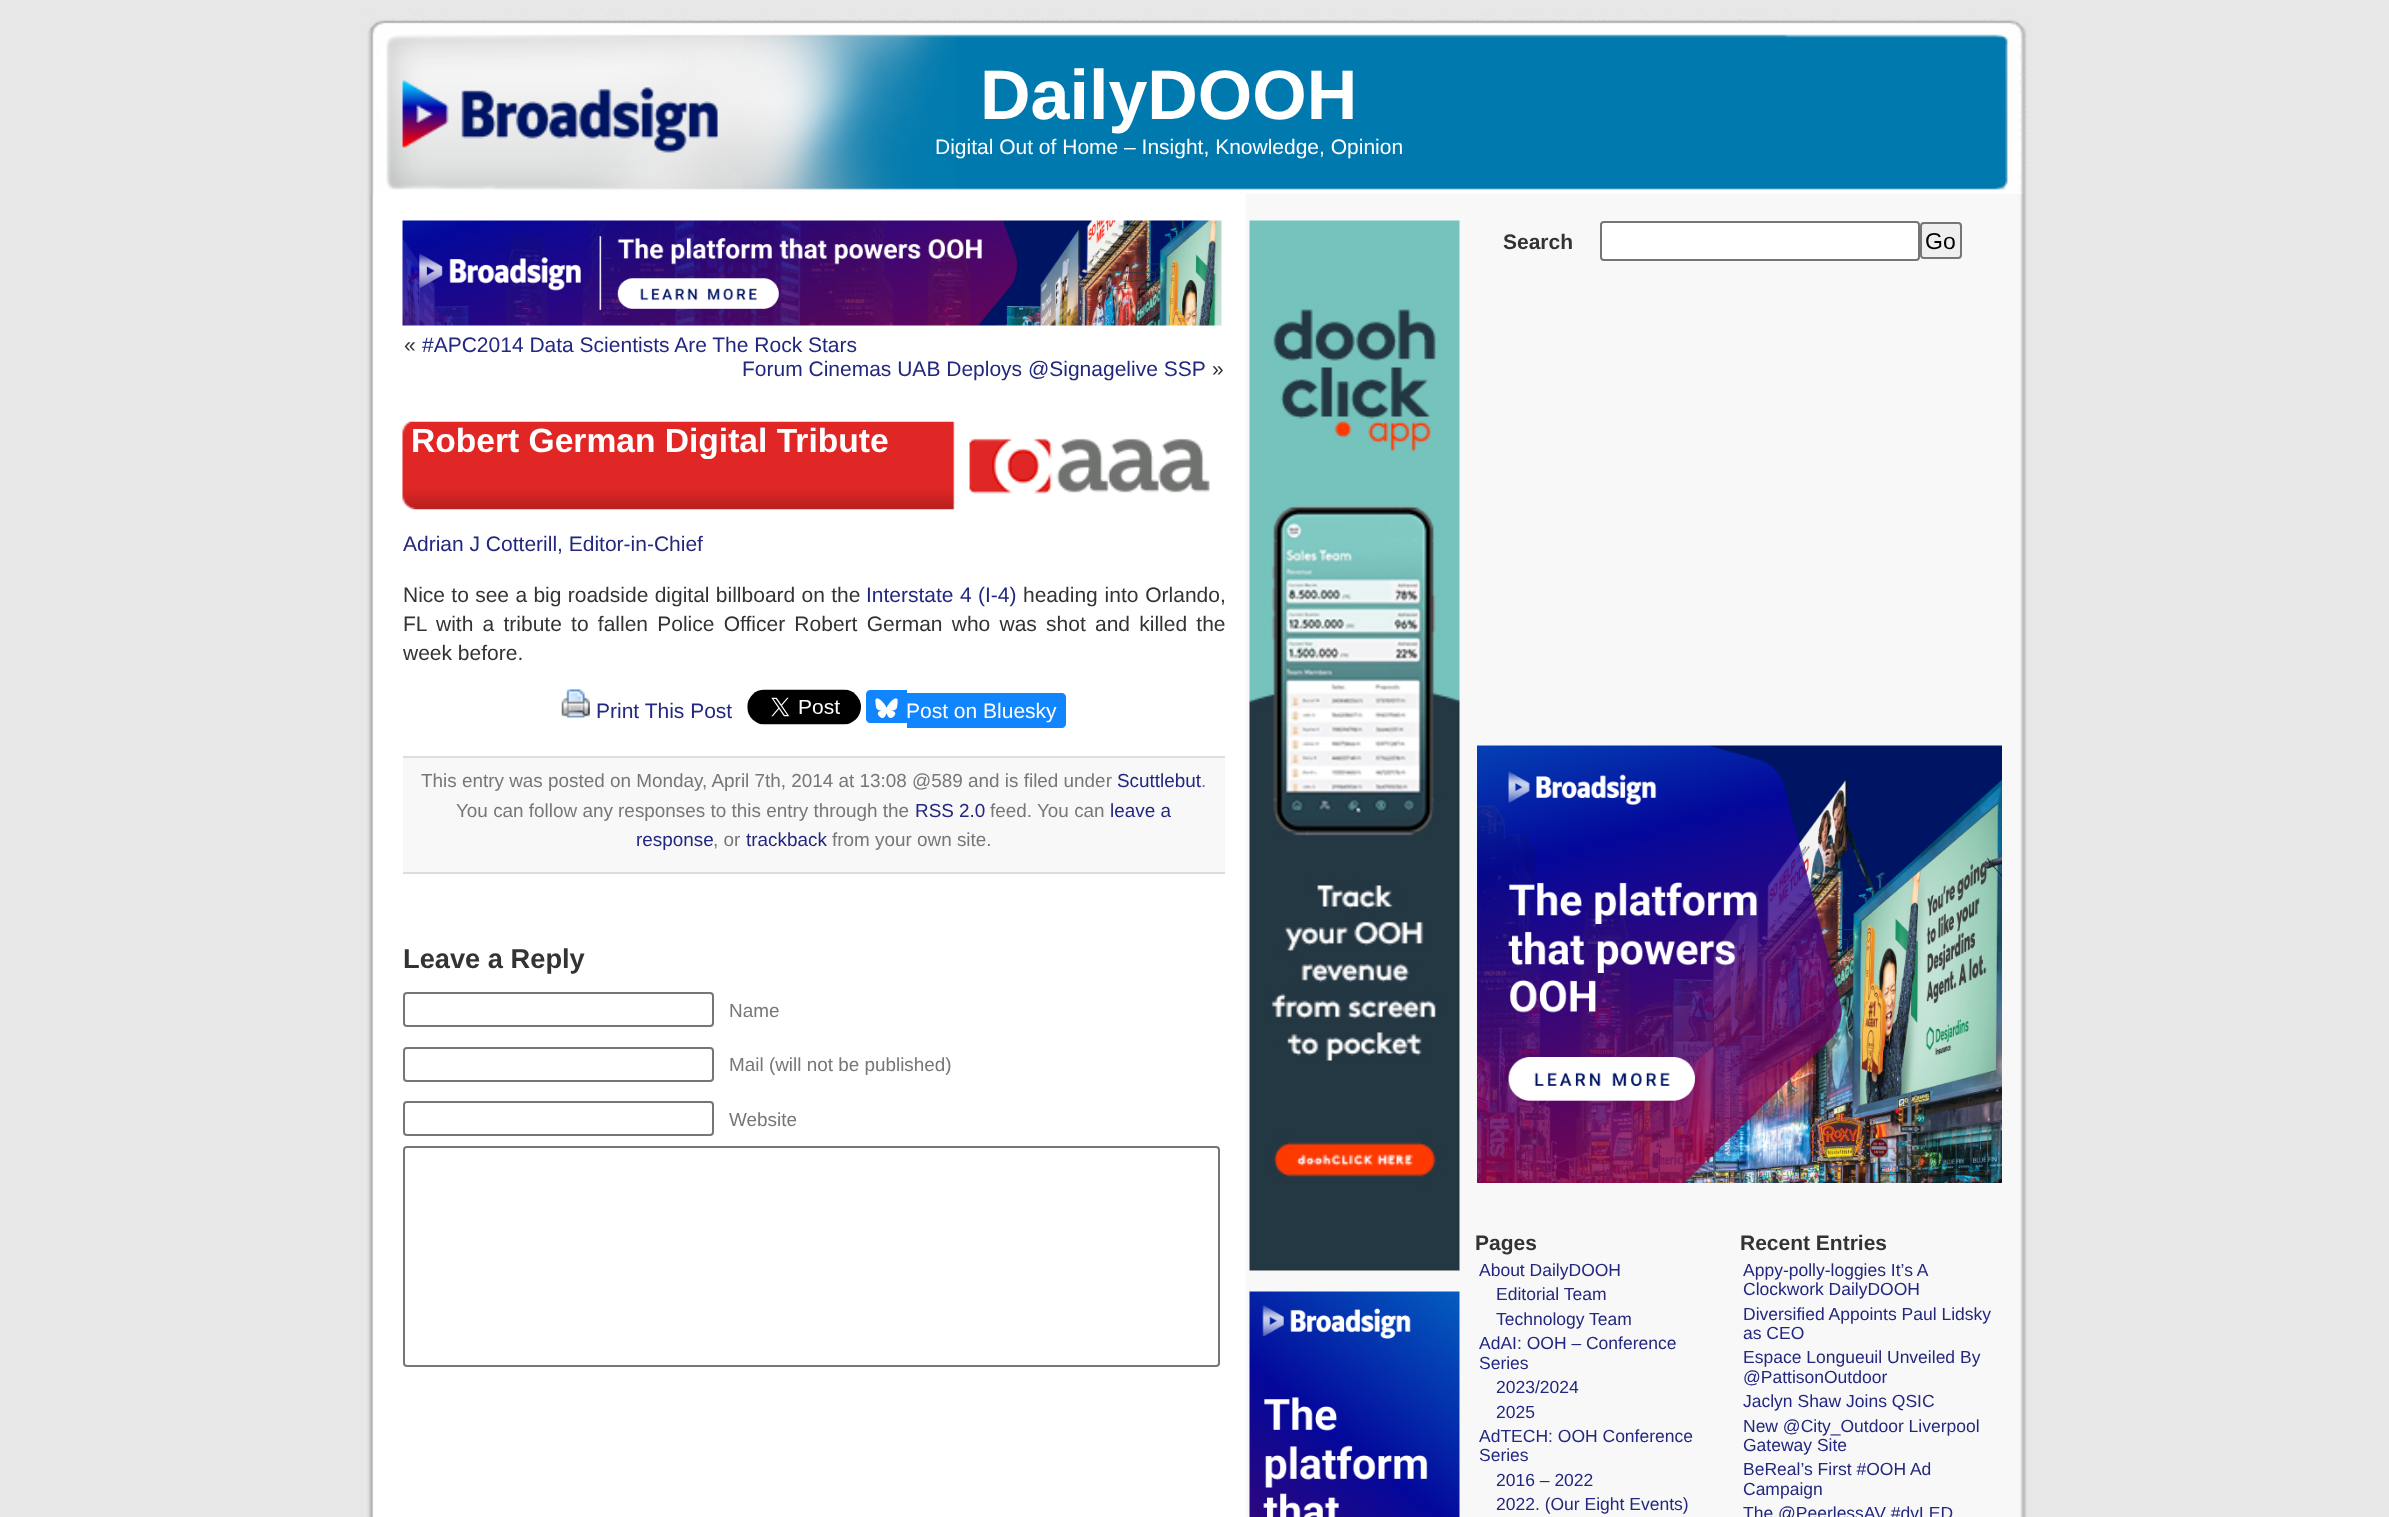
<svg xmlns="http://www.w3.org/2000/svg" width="2389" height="1517">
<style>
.a{font:bold 70px Liberation Sans;fill:#fff}
.b{font:21px Liberation Sans;fill:#fff}
.c{font:21px Liberation Sans;fill:#333}
.d{font:21px Liberation Sans;fill:#22277f}
.e{font:bold 33.6px Liberation Sans;fill:#fff}
.f{font:18.9px Liberation Sans;fill:#777}
.g{font:18.9px Liberation Sans;fill:#22277f}
.h{font:bold 27.25px Liberation Sans;fill:#333}
.i{font:bold 21px Liberation Sans;fill:#333}
.j{font:23px Liberation Sans;fill:#000}
.k{font:17.5px Liberation Sans;fill:#22277f}
</style>
<rect width="100%" height="100%" fill="#e7e7e7"/>
<image href="1.png" x="367" y="194" width="1660" height="1323"/>
<image href="2.png" x="367" y="14" width="1660" height="180"/>
<image href="3.png" x="402" y="220" width="820" height="106"/>
<image href="4.png" x="402" y="421" width="808" height="89"/>
<image href="5.png" x="561" y="689" width="29" height="29"/>
<image href="6.png" x="747" y="689" width="114" height="36"/>
<path fill="#1185fe" d="M870 690h37v33h-37c-2 0-4-2-4-4v-25c0-2 2-4 4-4z"/>
<image href="7.png" x="875" y="698" width="23" height="20"/>
<path fill="#1185fe" d="M907 693h155c2 0 4 2 4 4v27c0 2-2 4-4 4h-155z"/>
<path fill="#f8f8f8" d="M403 758h822v114H403z"/>
<path fill="#ddd" d="M403 756h822v2H403z"/>
<path fill="#ddd" d="M403 872h822v2H403z"/>
<rect fill="none" stroke="#767676" stroke-width="2" x="404" y="993" width="309" height="33" rx="3"/>
<rect fill="none" stroke="#767676" stroke-width="2" x="404" y="1048" width="309" height="33" rx="3"/>
<rect fill="none" stroke="#767676" stroke-width="2" x="404" y="1102" width="309" height="33" rx="3"/>
<rect fill="none" stroke="#767676" stroke-width="2" x="404" y="1147" width="815" height="219" rx="3"/>
<image href="8.png" x="1249" y="220" width="211" height="1051"/>
<image href="9.png" x="1249" y="1291" width="211" height="226"/>
<rect fill="#fff" stroke="#767676" stroke-width="2" x="1601" y="222" width="318" height="38" rx="3"/>
<rect fill="#efefef" stroke="#767676" stroke-width="2" x="1921" y="223" width="40" height="35" rx="3"/>
<image href="10.png" x="1477" y="745" width="525" height="438"/>
<text class="a" x="980" y="119">DailyDOOH</text>
<text class="b" x="935" y="154">Digital Out of Home – Insight, Knowledge, Opinion</text>
<text class="c" x="404" y="352">«</text>
<text class="d" x="422" y="352">#APC2014 Data Scientists Are The Rock Stars</text>
<text class="d" x="742" y="376">Forum Cinemas UAB Deploys @Signagelive SSP</text>
<text class="c" x="1212" y="376">»</text>
<text class="e" x="411" y="452">Robert German Digital Tribute</text>
<text class="d" x="403" y="551">Adrian J Cotterill, Editor-in-Chief</text>
<text class="c" x="403" y="602" word-spacing="0.5">Nice to see a big roadside digital billboard on the</text>
<text class="d" x="866" y="602" word-spacing="0.5">Interstate 4 (I-4)</text>
<text class="c" x="1023" y="602" word-spacing="1">heading into Orlando,</text>
<text class="c" x="403" y="631" word-spacing="3.4">FL with a tribute to fallen Police Officer Robert German who was shot and killed the</text>
<text class="c" x="403" y="660">week before.</text>
<text class="d" x="596" y="718">Print This Post</text>
<text class="b" x="906" y="718">Post on Bluesky</text>
<text class="f" x="421" y="787">This entry was posted on Monday, April 7th, 2014 at 13:08 @589 and is filed under</text>
<text class="g" x="1117" y="787">Scuttlebut</text>
<text class="f" x="1201" y="787">.</text>
<text class="f" x="456" y="817">You can follow any responses to this entry through the</text>
<text class="g" x="915" y="817">RSS 2.0</text>
<text class="f" x="990" y="817">feed.</text>
<text class="f" x="1037" y="817">You can</text>
<text class="g" x="1110" y="817">leave a</text>
<text class="g" x="636" y="846">response</text>
<text class="f" x="713" y="846">, or</text>
<text class="g" x="746" y="846">trackback</text>
<text class="f" x="832" y="846">from your own site.</text>
<text class="h" x="403" y="968">Leave a Reply</text>
<text class="f" x="729" y="1017">Name</text>
<text class="f" x="729" y="1071">Mail (will not be published)</text>
<text class="f" x="729" y="1126">Website</text>
<text class="i" x="1503" y="249">Search</text>
<text class="j" x="1925" y="249">Go</text>
<text class="i" x="1475" y="1250">Pages</text>
<text class="k" x="1479" y="1276">About DailyDOOH</text>
<text class="k" x="1496" y="1300">Editorial Team</text>
<text class="k" x="1496" y="1325">Technology Team</text>
<text class="k" x="1479" y="1349">AdAI: OOH – Conference</text>
<text class="k" x="1479" y="1369">Series</text>
<text class="k" x="1496" y="1393">2023/2024</text>
<text class="k" x="1496" y="1418">2025</text>
<text class="k" x="1479" y="1442">AdTECH: OOH Conference</text>
<text class="k" x="1479" y="1461">Series</text>
<text class="k" x="1496" y="1486">2016 – 2022</text>
<text class="k" x="1496" y="1510">2022. (Our Eight Events)</text>
<text class="i" x="1740" y="1250">Recent Entries</text>
<text class="k" x="1743" y="1276">Appy-polly-loggies It’s A</text>
<text class="k" x="1743" y="1295">Clockwork DailyDOOH</text>
<text class="k" x="1743" y="1320">Diversified Appoints Paul Lidsky</text>
<text class="k" x="1743" y="1339">as CEO</text>
<text class="k" x="1743" y="1363">Espace Longueuil Unveiled By</text>
<text class="k" x="1743" y="1383">@PattisonOutdoor</text>
<text class="k" x="1743" y="1407">Jaclyn Shaw Joins QSIC</text>
<text class="k" x="1743" y="1432">New @City_Outdoor Liverpool</text>
<text class="k" x="1743" y="1451">Gateway Site</text>
<text class="k" x="1743" y="1475">BeReal’s First #OOH Ad</text>
<text class="k" x="1743" y="1495">Campaign</text>
<text class="k" x="1743" y="1519">The @PeerlessAV #dvLED</text>
</svg>
